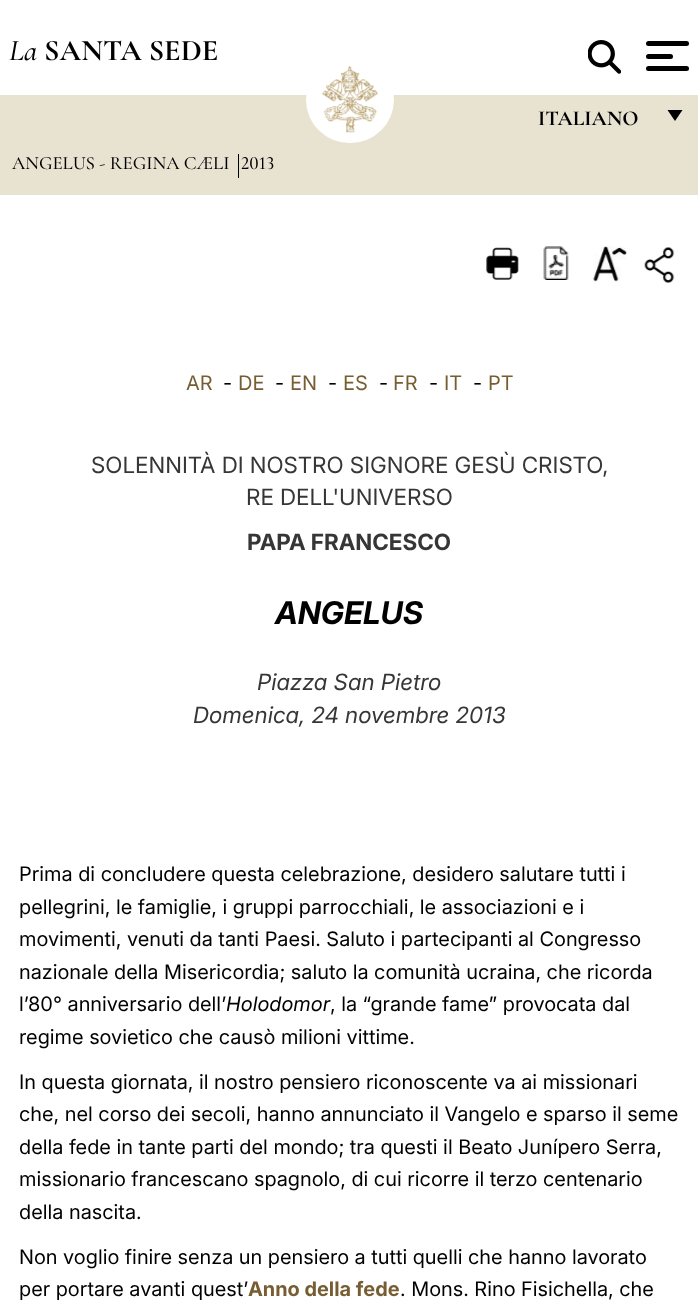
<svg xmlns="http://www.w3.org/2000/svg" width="698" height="1305">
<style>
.a{font:italic 500 30px Cormorant Garamond;fill:#000}
.b{font:bold 30px Cormorant Garamond;fill:#000}
.c{font:bold 21.25px Cormorant Garamond;fill:#000}
.d{font:500 18.75px Cormorant Garamond;fill:#000}
.e{font:500 18.75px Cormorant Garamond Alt;fill:#000}
.f{font:20px Inter;fill:#765e32}
.g{font:20px 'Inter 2';fill:#000}
.h{font:20px 'Inter 2';fill:#765e32}
.i{font:22.5px 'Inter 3';fill:#363636}
.j{font:bold 22.5px Inter;fill:#363636}
.k{font:italic bold 31.25px Inter;fill:#000}
.l{font:italic 22.5px Inter;fill:#363636}
.m{font:italic 20px 'Inter 2';fill:#000}
.n{font:bold 20px 'Inter 2';fill:#765e32}
</style>
<rect width="100%" height="100%" fill="#fff"/>
<path fill="#e8e2d1" d="M0 95h698v100H0z"/>
<rect fill="#fff" x="306" y="56" width="88" height="87" rx="43.5"/>
<image href="1.png" x="322" y="66" width="56" height="67"/>
<image href="2.png" x="588" y="40" width="33" height="34"/>
<rect fill="#000" x="646" y="41" width="43" height="5" rx="2.5"/>
<rect fill="#000" x="646" y="54" width="27" height="5" rx="2.5"/>
<rect fill="#000" x="646" y="66" width="43" height="5" rx="2.5"/>
<path fill="#000" d="M667.5 110h15l-7.5 11z"/>
<path fill="#000" d="M238 154h1v24H238z"/>
<image href="3.png" x="486" y="247" width="33" height="33"/>
<image href="4.png" x="543" y="246" width="26" height="34"/>
<image href="5.png" x="593" y="246" width="34" height="36"/>
<image href="6.png" x="644" y="247" width="31" height="36"/>
<text class="a" x="9" y="60">La</text>
<text class="b" x="44" y="60">SANTA SEDE</text>
<text class="c" x="538" y="125">ITALIANO</text>
<text class="d" x="12" y="169">ANGELUS - REGINA CÆLI</text>
<text class="e" x="241" y="169">2013</text>
<text class="f" x="186" y="390">AR</text>
<text class="g" x="223" y="390">-</text>
<text class="f" x="238" y="390">DE</text>
<text class="g" x="275" y="390">-</text>
<text class="f" x="290" y="390">EN</text>
<text class="g" x="328" y="390">-</text>
<text class="f" x="343" y="390">ES</text>
<text class="g" x="379" y="390">-</text>
<text class="f" x="393" y="390">FR</text>
<text class="g" x="429" y="390">-</text>
<text class="h" x="444" y="390">IT</text>
<text class="g" x="473" y="390">-</text>
<text class="h" x="488" y="390">PT</text>
<text class="i" x="91" y="473">SOLENNITÀ DI NOSTRO SIGNORE GESÙ CRISTO,</text>
<text class="i" x="246" y="505">RE DELL'UNIVERSO</text>
<text class="j" x="247" y="550">PAPA FRANCESCO</text>
<text class="k" x="275" y="624">ANGELUS</text>
<text class="l" x="257" y="690">Piazza San Pietro</text>
<text class="l" x="193" y="723">Domenica, 24 novembre 2013</text>
<text class="g" x="19" y="881">Prima di concludere questa celebrazione, desidero salutare tutti i</text>
<text class="g" x="19" y="914">pellegrini, le famiglie, i gruppi parrocchiali, le associazioni e i</text>
<text class="g" x="19" y="946">movimenti, venuti da tanti Paesi. Saluto i partecipanti al Congresso</text>
<text class="g" x="19" y="979">nazionale della Misericordia; saluto la comunità ucraina, che ricorda</text>
<text class="g" x="19" y="1011">l’80° anniversario dell’</text>
<text class="m" x="226" y="1011">Holodomor</text>
<text class="g" x="330" y="1011">, la “grande fame” provocata dal</text>
<text class="g" x="19" y="1044">regime sovietico che causò milioni vittime.</text>
<text class="g" x="19" y="1089">In questa giornata, il nostro pensiero riconoscente va ai missionari</text>
<text class="g" x="19" y="1121">che, nel corso dei secoli, hanno annunciato il Vangelo e sparso il seme</text>
<text class="g" x="19" y="1154">della fede in tante parti del mondo; tra questi il Beato Junípero Serra,</text>
<text class="g" x="19" y="1186">missionario francescano spagnolo, di cui ricorre il terzo centenario</text>
<text class="g" x="19" y="1219">della nascita.</text>
<text class="g" x="19" y="1264">Non voglio finire senza un pensiero a tutti quelli che hanno lavorato</text>
<text class="g" x="19" y="1296">per portare avanti quest’</text>
<text class="n" x="248" y="1296">Anno della fede</text>
<text class="g" x="400" y="1296">. Mons. Rino Fisichella, che</text>
</svg>
